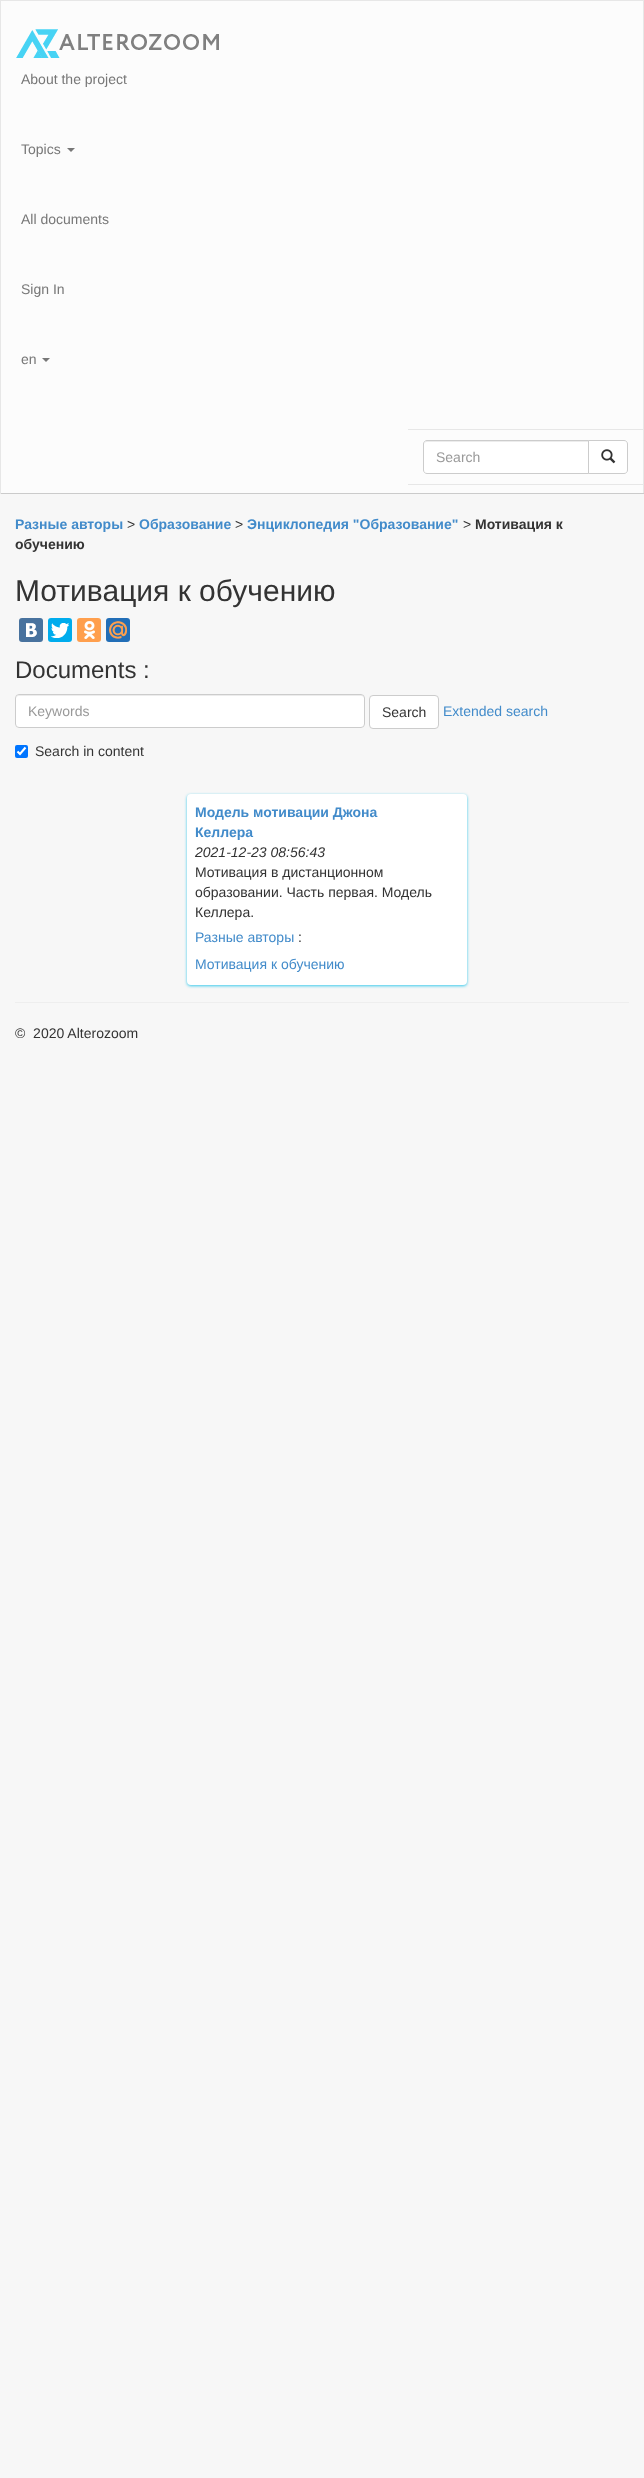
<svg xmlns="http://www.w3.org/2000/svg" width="644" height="2478">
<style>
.a{font:14px Liberation Sans;fill:#777}
.b{font:14px Liberation Sans;fill:#999}
.c{font:bold 14px Liberation Sans;fill:#428bca}
.d{font:14px Liberation Sans;fill:#333}
.e{font:bold 14px Liberation Sans;fill:#333}
.f{font:30px Liberation Sans;fill:#333}
.g{font:24px Liberation Sans;fill:#333}
.h{font:14px Liberation Sans;fill:#428bca}
.i{font:italic 14px Liberation Sans;fill:#333}
</style>
<rect width="100%" height="100%" fill="#f7f7f7"/>
<path fill="#fcfcfc" d="M1 1h642v492H1z"/>
<path fill="#e7e7e7" d="M0 0h644v1H0z"/>
<path fill="#e7e7e7" d="M643 0h1v494H643z"/>
<path fill="#cbcbcb" d="M0 493h644v1H0z"/>
<path fill="#e7e7e7" d="M0 0h1v494H0z"/>
<image href="1.png" x="16" y="29" width="203" height="29"/>
<path fill="#777" d="M67 148h8l-4 4z"/>
<path fill="#777" d="M42 358h8l-4 4z"/>
<path fill="#e7e7e7" d="M408 429h235v1H408z"/>
<path fill="#e7e7e7" d="M408 484h235v1H408z"/>
<path fill="#fff" d="M427 440h162v34h-162c-2 0-4-2-4-4v-26c0-2 2-4 4-4z"/>
<path fill="#ececec" d="M427 442h161v-1h-161c-2 0-3 2-3 4c0-2 1-3 3-3z"/>
<path fill="none" stroke="#ccc" d="M427 440.5h161.5v33h-161.5c-2 0-3.5-1.5-3.5-3.5v-26c0-2 1.5-3.5 3.5-3.5z"/>
<path fill="#fff" stroke="#ccc" d="M588.5 440.5h35.5c2 0 3.5 1.5 3.5 3.5v26c0 2-1.5 3.5-3.5 3.5h-35.5z"/>
<image href="2.png" x="601" y="449" width="15" height="15"/>
<rect fill="#48729e" x="19" y="618" width="24" height="24" rx="3"/>
<image href="3.png" x="26" y="623" width="11" height="14"/>
<rect fill="#00aced" x="48" y="618" width="24" height="24" rx="3"/>
<image href="4.png" x="51" y="623" width="18" height="15"/>
<rect fill="#ff9f4d" x="77" y="618" width="24" height="24" rx="3"/>
<image href="5.png" x="84" y="621" width="11" height="18"/>
<rect fill="#226eb7" x="106" y="618" width="24" height="24" rx="3"/>
<image href="6.png" x="109" y="621" width="18" height="18"/>
<rect fill="#fff" x="15" y="694" width="350" height="34" rx="4"/>
<path fill="#ececec" d="M19 696h342c2 0 3 1 3 3c0-2-1-4-3-4h-342l-2 1l-1 3c0-2 1-3 3-3z"/>
<rect fill="none" stroke="#ccc" x="15.5" y="694.5" width="349" height="33" rx="3.5"/>
<rect fill="#fff" stroke="#ccc" x="369.5" y="695.5" width="69" height="33" rx="3.5"/>
<rect fill="#0075ff" x="15" y="745" width="13" height="13" rx="2"/>
<path fill="none" stroke="#fff" stroke-width="2.1" d="M17.5 751.5l2.5 2.5l5.5-6.5"/>
<rect fill="#36c9ec" filter="blur(1.5px)" x="187" y="795" width="280" height="191" rx="4"/>
<rect fill="#fff" x="187" y="794" width="280" height="191" rx="4"/>
<path fill="#eee" d="M15 1002h614v1H15z"/>
<text class="a" x="21" y="84">About the project</text>
<text class="a" x="21" y="154">Topics</text>
<text class="a" x="21" y="224">All documents</text>
<text class="a" x="21" y="294">Sign In</text>
<text class="a" x="21" y="364">en</text>
<text class="b" x="436" y="462">Search</text>
<text class="c" x="15" y="529">Разные авторы</text>
<text class="d" x="127" y="529">&gt;</text>
<text class="c" x="139" y="529">Образование</text>
<text class="d" x="235" y="529">&gt;</text>
<text class="c" x="247" y="529">Энциклопедия "Образование"</text>
<text class="d" x="463" y="529">&gt;</text>
<text class="e" x="475" y="529">Мотивация к</text>
<text class="e" x="15" y="549">обучению</text>
<text class="f" x="15" y="601">Мотивация к обучению</text>
<text class="g" x="15" y="678">Documents :</text>
<text class="b" x="28" y="716">Keywords</text>
<text class="d" x="382" y="717">Search</text>
<text class="h" x="443" y="716">Extended search</text>
<text class="d" x="35" y="756">Search in content</text>
<text class="c" x="195" y="817">Модель мотивации Джона</text>
<text class="c" x="195" y="837">Келлера</text>
<text class="i" x="195" y="857">2021-12-23 08:56:43</text>
<text class="d" x="195" y="877">Мотивация в дистанционном</text>
<text class="d" x="195" y="897">образовании. Часть первая. Модель</text>
<text class="d" x="195" y="917">Келлера.</text>
<text class="h" x="195" y="942">Разные авторы</text>
<text class="d" x="298" y="942">:</text>
<text class="h" x="195" y="969">Мотивация к обучению</text>
<text class="d" xml:space="preserve" x="15" y="1038">©  2020 Alterozoom</text>
</svg>
